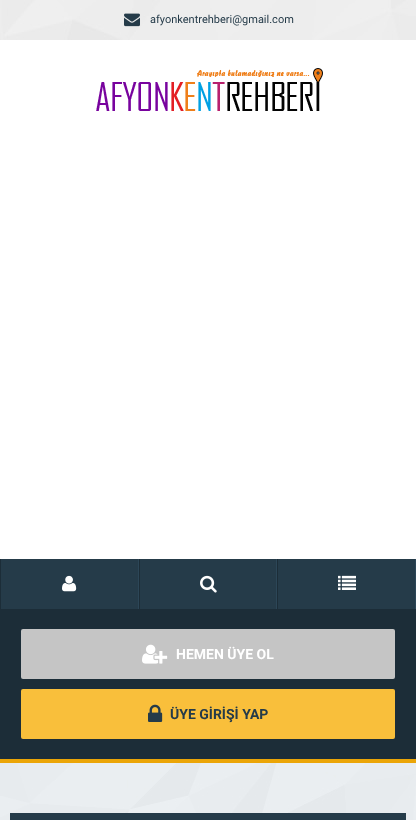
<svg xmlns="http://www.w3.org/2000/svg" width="416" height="820">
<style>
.a{font:11px Roboto;fill:#253b49}
.b{font:bold 14px Roboto;fill:#fff}
.c{font:bold 14px Roboto;fill:#253b49}
</style>
<rect width="100%" height="100%" fill="#fff"/>
<image href="1.png" x="0" y="763" width="416" height="57"/>
<image href="2.png" x="0" y="0" width="416" height="40"/>
<image href="3.png" x="124" y="13" width="16" height="14"/>
<image href="4.png" x="96" y="68" width="227" height="43"/>
<path fill="#253b49" d="M1 559h137v50H1z"/>
<path fill="#2c4657" d="M138 559h1v50H138z"/>
<path fill="#1c2d38" d="M0 559h1v50H0z"/>
<image href="5.png" x="62" y="575" width="15" height="17"/>
<path fill="#253b49" d="M140 559h136v50H140z"/>
<path fill="#2c4657" d="M276 559h1v50H276z"/>
<path fill="#1c2d38" d="M139 559h1v50H139z"/>
<image href="6.png" x="200" y="575" width="17" height="18"/>
<path fill="#253b49" d="M278 559h137v50H278z"/>
<path fill="#2c4657" d="M415 559h1v50H415z"/>
<path fill="#1c2d38" d="M277 559h1v50H277z"/>
<image href="7.png" x="338" y="575" width="18" height="15"/>
<path fill="#1c2d38" d="M0 609h416v150H0z"/>
<rect fill="#c5c5c5" x="21" y="629" width="374" height="50" rx="2"/>
<image href="8.png" x="142" y="644" width="26" height="20"/>
<rect fill="#f9bf3b" x="21" y="689" width="374" height="50" rx="2"/>
<image href="9.png" x="148" y="704" width="15" height="18"/>
<path fill="#eba507" d="M0 759h416v4H0z"/>
<path fill="#253b49" d="M10 813h396v7H10z"/>
<text class="a" x="150" y="23">afyonkentrehberi@gmail.com</text>
<text class="b" x="176" y="659">HEMEN ÜYE OL</text>
<text class="c" x="170" y="719">ÜYE GİRİŞİ YAP</text>
</svg>
